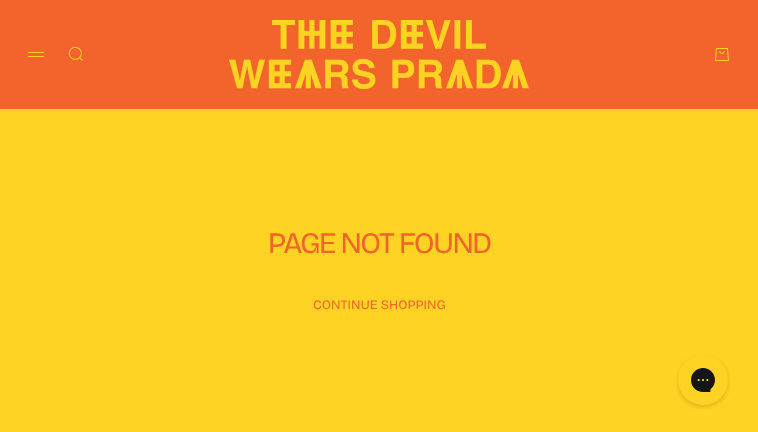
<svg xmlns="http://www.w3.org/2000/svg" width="758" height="432">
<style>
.a{font:29.75px Bricolage Grotesque;letter-spacing:-1.5px;fill:#f2642b}
.b{font:13px 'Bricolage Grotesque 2';fill:#f2642b}
</style>
<rect width="100%" height="100%" fill="#fed323"/>
<path fill="#f2642b" d="M0 0h758v109H0z"/>
<path fill="#fed323" d="M28 52h16v1H28z"/>
<path fill="#fed323" d="M28 56h16v1H28z"/>
<image href="1.png" x="68" y="46" width="15" height="15"/>
<image href="2.png" x="229" y="20" width="300" height="69"/>
<image href="3.png" x="715" y="48" width="14" height="13"/>
<image href="4.png" x="676" y="355" width="54" height="54"/>
<text class="a" x="268" y="253">PAGE NOT FOUND</text>
<text class="b" x="313" y="309">CONTINUE SHOPPING</text>
</svg>
